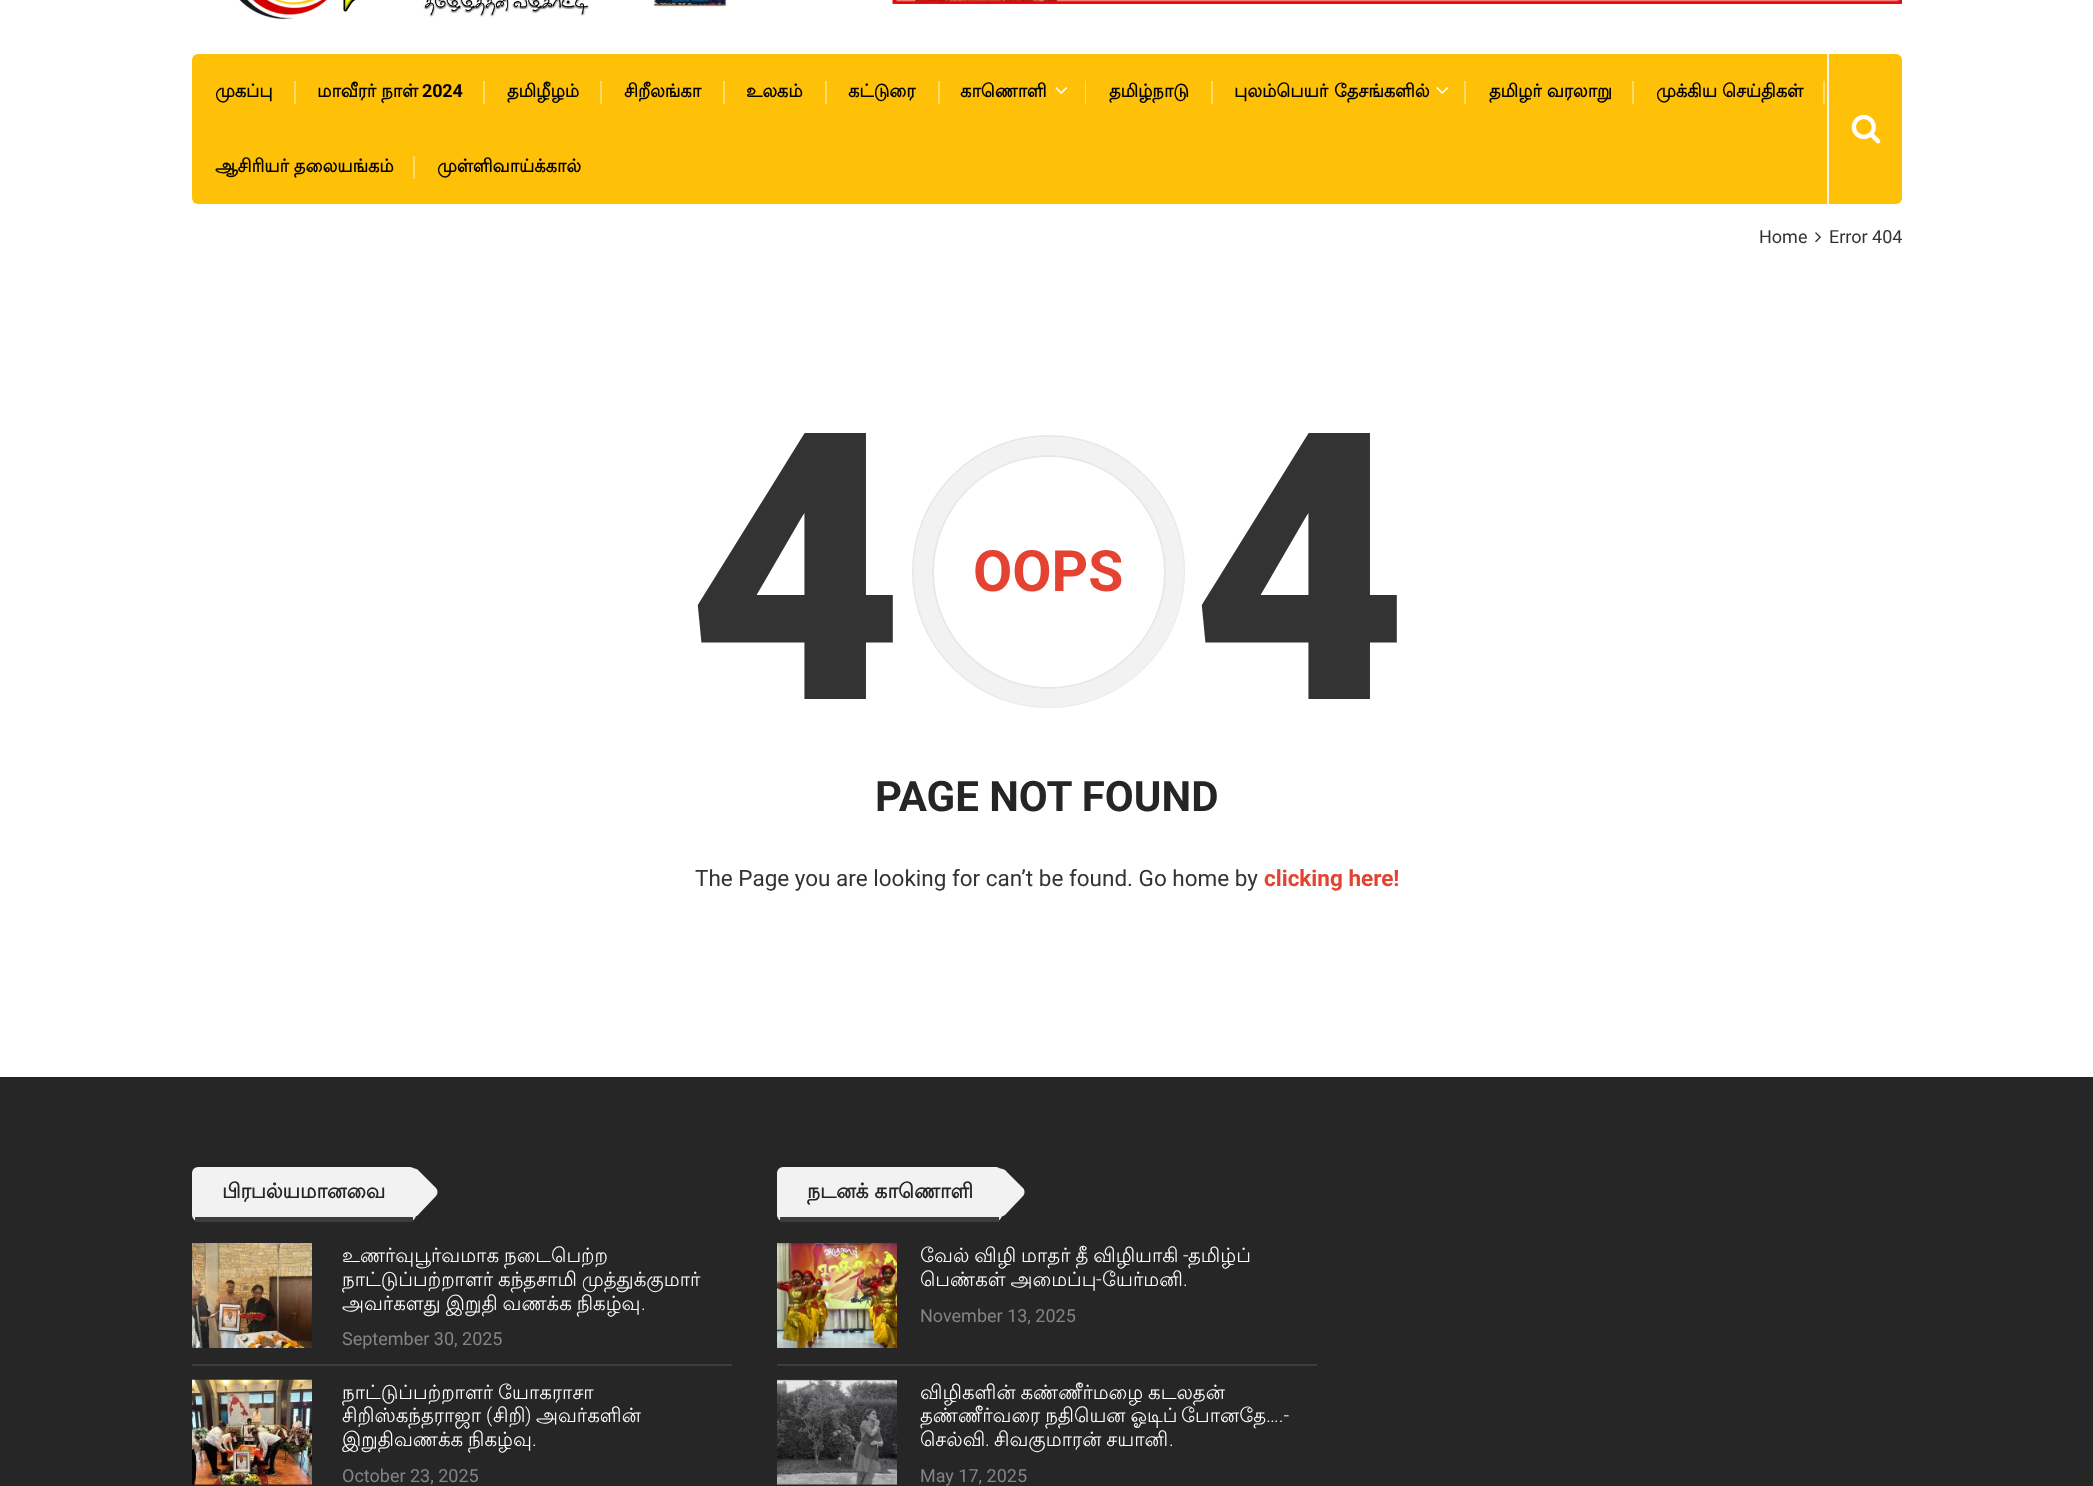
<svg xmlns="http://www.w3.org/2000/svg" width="2093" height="1486">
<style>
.a{font:bold 18px Lohit Tamil;letter-spacing:-0.2px;fill:#000}
.b{font:bold 18px Roboto;letter-spacing:-0.2px;fill:#000}
.c{font:18px Roboto;fill:#333}
.d{font:900 374px Roboto;fill:#333}
.e{font:bold 57px Roboto;fill:#e44332}
.f{font:bold 42px Roboto;fill:#252525}
.g{font:22.5px Roboto;fill:#333}
.h{font:bold 22.5px Roboto;fill:#e44332}
.i{font:bold 20.5px Lohit Tamil;letter-spacing:-0.25px;fill:#252525}
.j{font:19.75px Lohit Tamil;fill:#fff}
.k{font:300 19.75px Roboto;fill:#fff}
.l{font:18px Roboto;fill:#858484}
</style>
<rect width="100%" height="100%" fill="#fff"/>
<image href="1.png" x="239" y="0" width="488" height="20"/>
<image href="2.png" x="892" y="0" width="1010" height="4"/>
<rect fill="#ffc107" x="192" y="54" width="1710" height="150" rx="6"/>
<path fill="#ffda6a" d="M294 81h2v23H294z"/>
<path fill="#ffda6a" d="M483 81h2v23H483z"/>
<path fill="#ffda6a" d="M600 81h2v23H600z"/>
<path fill="#ffda6a" d="M723 81h2v23H723z"/>
<path fill="#ffda6a" d="M825 81h2v23H825z"/>
<path fill="#ffda6a" d="M938 81h2v23H938z"/>
<image href="3.png" x="1055" y="87" width="12" height="7"/>
<path fill="#ffda6a" d="M1085 81h1v23H1085z"/>
<path fill="#ffda6a" d="M1211 81h2v23H1211z"/>
<image href="3.png" x="1436" y="87" width="12" height="7"/>
<path fill="#ffda6a" d="M1464 81h2v23H1464z"/>
<path fill="#ffda6a" d="M1632 81h2v23H1632z"/>
<path fill="#ffda6a" d="M1823 81h2v23H1823z"/>
<path fill="#ffda6a" d="M413 156h2v23H413z"/>
<path fill="#f2f2f2" d="M1827 54h2v150H1827z"/>
<image href="4.png" x="1851" y="114" width="30" height="30"/>
<image href="5.png" x="1815" y="232" width="6" height="11"/>
<circle fill="none" stroke="#e8e8e8" stroke-width="2" cx="1048.5" cy="571.5" r="135.5"/>
<circle fill="none" stroke="#f2f2f2" stroke-width="18" cx="1049" cy="572" r="126"/>
<circle fill="none" stroke="#e8e8e8" stroke-width="2" cx="1049" cy="572" r="116"/>
<path fill="#262626" d="M0 1077h2093v409H0z"/>
<rect fill="#f2f2f2" x="192" y="1167" width="224" height="54" rx="6"/>
<path fill="#3d3d3d" d="M195 1217h218v5H195z"/>
<path fill="#f2f2f2" d="M392 1188l18-18c2-2 6-2 8 0l18 18c2 2 2 6 0 8l-18 19c-2 2-6 2-8 0l-18-19c-3-2-3-6 0-8z"/>
<path fill="#3d3d3d" d="M192 1364h540v2H192z"/>
<image href="6.png" x="192" y="1243" width="120" height="105"/>
<image href="7.png" x="192" y="1379" width="120" height="106"/>
<rect fill="#f2f2f2" x="777" y="1167" width="225" height="54" rx="6"/>
<path fill="#3d3d3d" d="M780 1217h219v5H780z"/>
<path fill="#f2f2f2" d="M978 1188l18-18c3-2 6-2 9 0l18 18c2 2 2 6 0 8l-18 19c-3 2-6 2-9 0l-18-19c-2-2-2-6 0-8z"/>
<path fill="#3d3d3d" d="M777 1364h540v2H777z"/>
<image href="8.png" x="777" y="1243" width="120" height="105"/>
<image href="9.png" x="777" y="1379" width="120" height="106"/>
<text class="a" x="215" y="97">முகப்பு</text>
<text class="a" x="317" y="97">மாவீரர் நாள்</text>
<text class="b" x="422" y="97">2024</text>
<text class="a" x="507" y="97">தமிழீழம்</text>
<text class="a" x="624" y="97">சிறீலங்கா</text>
<text class="a" x="746" y="97">உலகம்</text>
<text class="a" x="848" y="97">கட்டுரை</text>
<text class="a" x="960" y="97">காணொளி</text>
<text class="a" x="1109" y="97">தமிழ்நாடு</text>
<text class="a" x="1234" y="97" word-spacing="1">புலம்பெயர் தேசங்களில்</text>
<text class="a" x="1489" y="97">தமிழர் வரலாறு</text>
<text class="a" x="1656" y="97">முக்கிய செய்திகள்</text>
<text class="a" x="215" y="172">ஆசிரியர் தலையங்கம்</text>
<text class="a" x="437" y="172">முள்ளிவாய்க்கால்</text>
<text class="c" x="1759" y="243">Home</text>
<text class="c" x="1829" y="243">Error 404</text>
<text class="d" x="687" y="699">4</text>
<text class="e" x="973" y="591">OOPS</text>
<text class="d" x="1191" y="699">4</text>
<text class="f" x="875" y="811">PAGE NOT FOUND</text>
<text class="g" x="695" y="886">The Page you are looking for can’t be found. Go home by</text>
<text class="h" x="1264" y="886">clicking here!</text>
<text class="i" x="222" y="1198">பிரபல்யமானவை</text>
<text class="j" x="342" y="1262" word-spacing="-1">உணர்வுபூர்வமாக நடைபெற்ற</text>
<text class="j" x="342" y="1286" word-spacing="-1">நாட்டுப்பற்றாளர் கந்தசாமி முத்துக்குமார்</text>
<text class="j" x="342" y="1310" word-spacing="-1">அவர்களது இறுதி வணக்க நிகழ்வு</text>
<text class="k" x="641" y="1310">.</text>
<text class="l" x="342" y="1345">September 30, 2025</text>
<text class="j" x="342" y="1399" word-spacing="-1">நாட்டுப்பற்றாளர் யோகராசா</text>
<text class="j" x="342" y="1422">சிறிஸ்கந்தராஜா</text>
<text class="k" x="486" y="1422">(</text>
<text class="j" x="493" y="1422">சிறி</text>
<text class="k" x="525" y="1422">)</text>
<text class="j" x="536" y="1422">அவர்களின்</text>
<text class="j" x="342" y="1446" word-spacing="-1">இறுதிவணக்க நிகழ்வு</text>
<text class="k" x="532" y="1446">.</text>
<text class="l" x="342" y="1482">October 23, 2025</text>
<text class="i" x="807" y="1198">நடனக் காணொளி</text>
<text class="j" x="920" y="1262" word-spacing="-1">வேல் விழி மாதர் தீ விழியாகி</text>
<text class="k" x="1183" y="1262">-</text>
<text class="j" x="1188" y="1262">தமிழ்ப்</text>
<text class="j" x="920" y="1286" word-spacing="-1">பெண்கள் அமைப்பு</text>
<text class="k" x="1096" y="1286">-</text>
<text class="j" x="1102" y="1286">யேர்மனி</text>
<text class="k" x="1183" y="1286">.</text>
<text class="l" x="920" y="1322">November 13, 2025</text>
<text class="j" x="920" y="1399" word-spacing="-1">விழிகளின் கண்ணீர்மழை கடலதன்</text>
<text class="j" x="920" y="1422" word-spacing="-1">தண்ணீர்வரை நதியென ஓடிப்</text>
<text class="j" x="1181" y="1422">போனதே</text>
<text class="k" x="1266" y="1422">….-</text>
<text class="j" x="920" y="1446">செல்வி</text>
<text class="k" x="985" y="1446">.</text>
<text class="j" x="994" y="1446" word-spacing="-1">சிவகுமாரன் சயானி</text>
<text class="k" x="1169" y="1446">.</text>
<text class="l" x="920" y="1482">May 17, 2025</text>
</svg>
